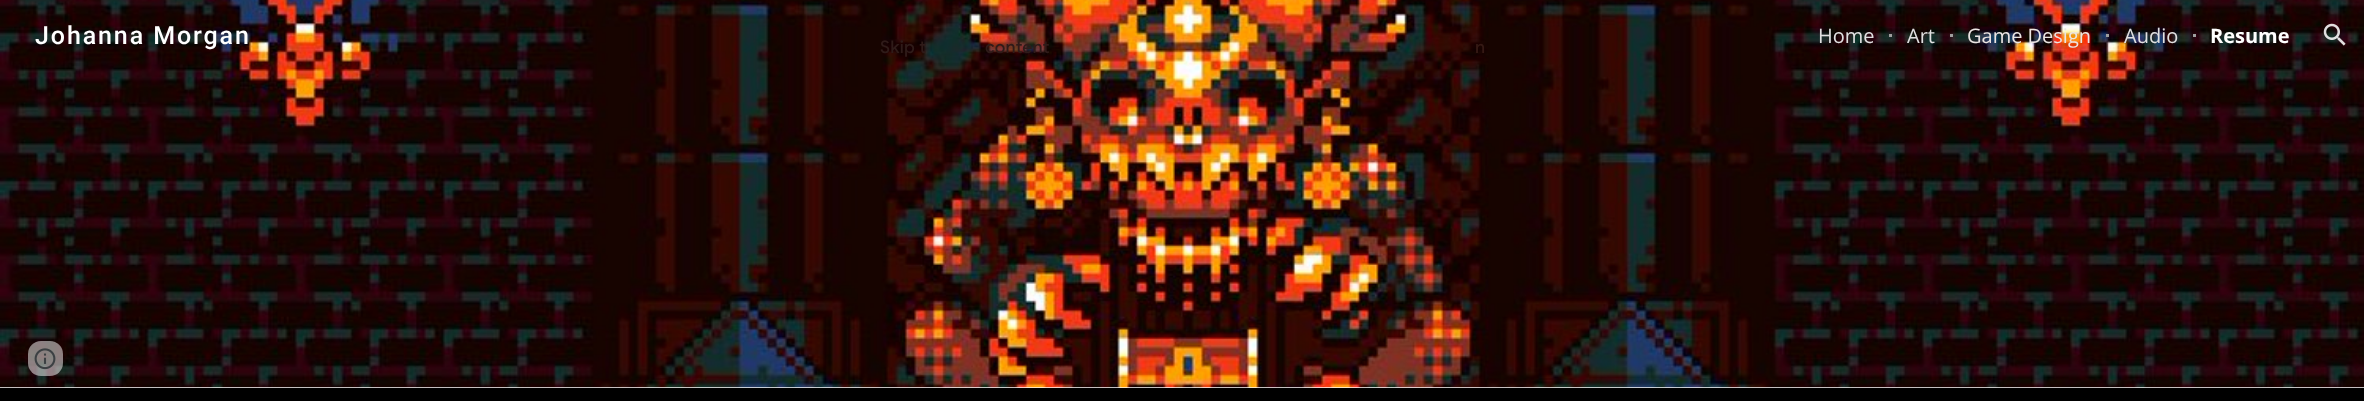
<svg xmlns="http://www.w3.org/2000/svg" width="2364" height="401">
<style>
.a{font:500 25px Roboto;letter-spacing:1.9px;fill:#fff}
.b{font:20px Open Sans;fill:#e1e0e1}
.c{font:20px Open Sans;fill:#ebe5e3}
.d{font:bold 20px Open Sans;fill:#fff}
.e{font:500 17.5px Google Sans;letter-spacing:0.25px;fill:#2f1b19}
.f{font:500 17.5px Google Sans;letter-spacing:0.25px;fill:#351914}
</style>
<rect width="100%" height="100%" fill="#fff"/>
<image href="1.png" x="0" y="0" width="2364" height="388"/>
<path fill="#000" d="M0 388h2364v13H0z"/>
<path fill="#9e9e9e" d="M1889 34h3v3H1889z"/>
<path fill="#9e9e9e" d="M1950 34h3v3H1950z"/>
<path fill="#9e9e9e" d="M2106 34h3v3H2106z"/>
<path fill="#9e9e9e" d="M2193 34h3v3H2193z"/>
<image href="2.png" x="2323" y="23" width="23" height="23"/>
<rect fill="#ffffff80" x="28" y="341" width="35" height="35" rx="13"/>
<image href="3.png" x="34" y="348" width="22" height="22"/>
<text class="a" x="35" y="44">Johanna Morgan</text>
<text class="b" x="1818" y="43">Home</text>
<text class="b" x="1907" y="43">Art</text>
<text class="c" x="1967" y="43">Game Design</text>
<text class="b" x="2124" y="43">Audio</text>
<text class="d" x="2210" y="43">Resume</text>
<text class="e" x="880" y="53">Skip t</text>
<text class="e" x="985" y="53">content</text>
<text class="f" x="1475" y="53">n</text>
</svg>
